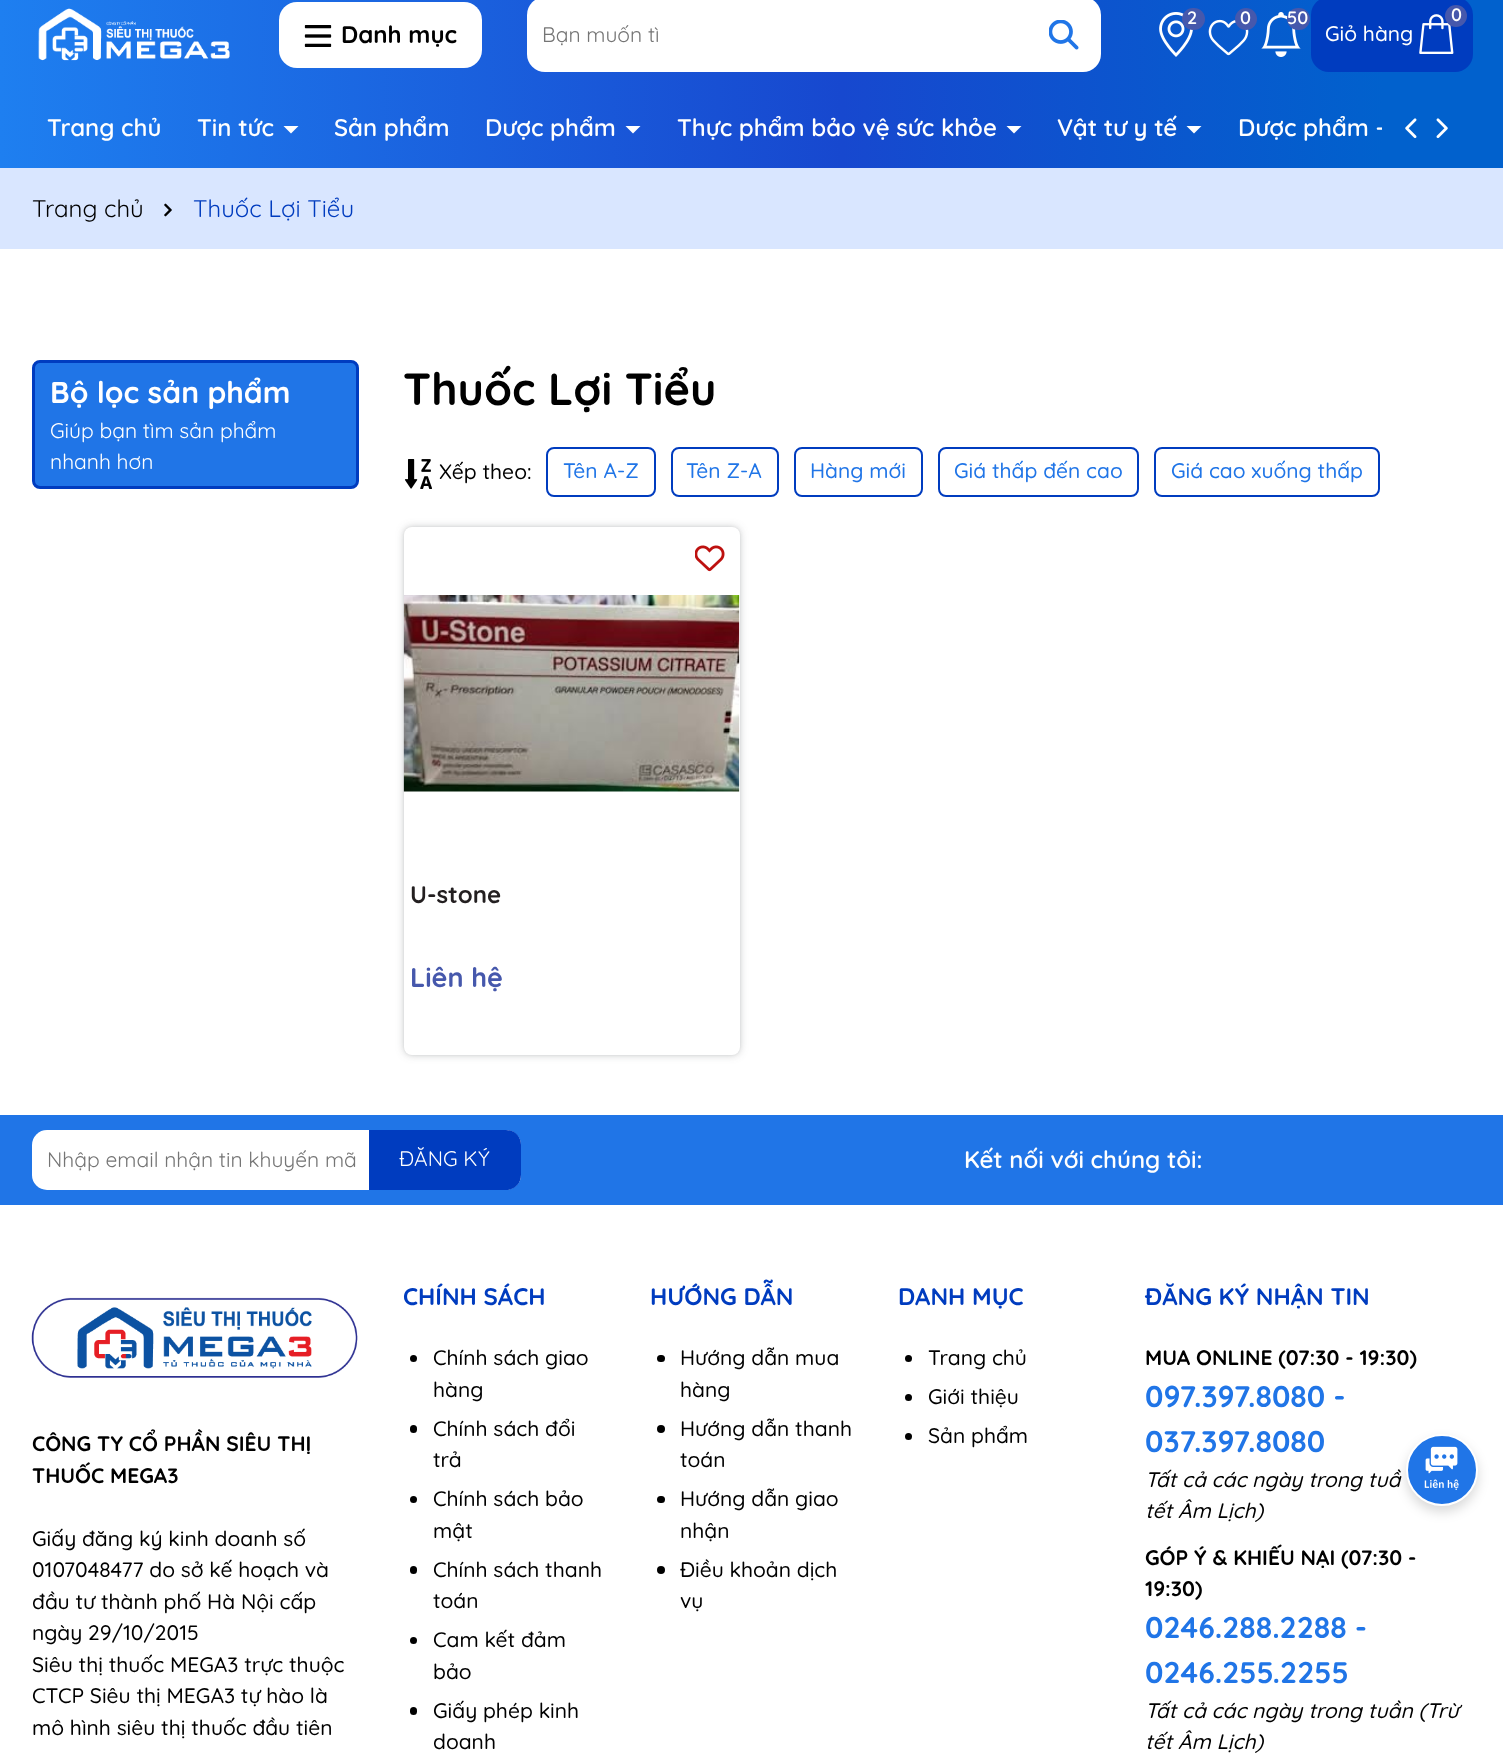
<svg xmlns="http://www.w3.org/2000/svg" width="1503" height="1760">
<style>
.a{font:bold 24px Quicksand;fill:#000}
.b{font:21px Quicksand;fill:#757575}
.c{font:600 18px Quicksand;fill:#fff}
.d{font:500 21px Quicksand;fill:#fff}
.e{font:600 24px Quicksand;fill:#fff}
.f{font:24px Quicksand;fill:#000}
.g{font:24px Quicksand;fill:#003cbf}
.h{font:bold 30px Quicksand;fill:#fff}
.i{font:21px Quicksand;fill:#fff}
.j{font:bold 45px Quicksand;fill:#000}
.k{font:500 21px Quicksand;fill:#000}
.l{font:500 21px Quicksand;fill:#2075e7}
.m{font:bold 24px Quicksand;fill:#231f20}
.n{font:bold 27px Quicksand;fill:#4658ac}
.o{font:bold 24px Quicksand;fill:#003cbf}
.p{font:bold 21px Quicksand;fill:#000}
.q{font:bold 30px Quicksand;fill:#2075e7}
.r{font:italic 500 21px Quicksand;fill:#000}
</style>
<defs>
<linearGradient id="g1" gradientUnits="userSpaceOnUse" x1="0" y1="52" x2="1503" y2="52"><stop offset="0" stop-color="#1e7ff0"/><stop offset="0.56" stop-color="#1748cf"/><stop offset="0.92" stop-color="#0161cd"/></linearGradient>
<clipPath id="clip1"><path d="M32 87h1350v81H32z"/></clipPath>
</defs>
<rect width="100%" height="100%" fill="#fff"/>
<path fill="url(#g1)" d="M0 0h1503v168H0z"/>
<image href="1.png" x="38" y="8" width="192" height="53"/>
<rect fill="#fff" x="279" y="2" width="203" height="66" rx="18"/>
<image href="2.png" x="304" y="25" width="28" height="22"/>
<rect fill="#fff" x="527" y="-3" width="574" height="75" rx="18"/>
<image href="3.png" x="1049" y="20" width="30" height="30"/>
<image href="4.png" x="1159" y="12" width="34" height="45"/>
<rect fill="#4658ac" x="1182" y="8" width="23" height="22" rx="11"/>
<image href="5.png" x="1208" y="19" width="41" height="37"/>
<circle fill="#4658ac" cx="1246" cy="19" r="11"/>
<image href="6.png" x="1261" y="12" width="40" height="45"/>
<rect fill="#4658ac" x="1287" y="8" width="23" height="22" rx="11"/>
<rect fill="#003cbf" x="1311" y="-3" width="162" height="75" rx="18"/>
<image href="7.png" x="1419" y="14" width="35" height="40"/>
<circle fill="#4658ac" cx="1456" cy="16" r="11"/>
<path fill="#fff" d="M283.5 126h15l-7.5 7.5z"/>
<path fill="#fff" d="M625.5 126h15l-7.5 7.5z"/>
<path fill="#fff" d="M1006.5 126h15l-7.5 7.5z"/>
<path fill="#fff" d="M1186.5 126h15l-7.5 7.5z"/>
<image href="8.png" x="1405" y="118" width="12" height="21"/>
<image href="9.png" x="1436" y="118" width="12" height="21"/>
<path fill="#d9e6ff" d="M0 168h1503v81H0z"/>
<image href="10.png" x="164" y="203" width="8" height="14"/>
<rect fill="#2075e7" stroke="#003cbf" stroke-width="3" x="33.5" y="361.5" width="324" height="126" rx="6.5"/>
<image href="11.png" x="404" y="459" width="28" height="30"/>
<rect fill="none" stroke="#003cbf" stroke-width="2" x="547" y="448" width="108" height="48" rx="7"/>
<rect fill="none" stroke="#003cbf" stroke-width="2" x="672" y="448" width="106" height="48" rx="7"/>
<rect fill="none" stroke="#003cbf" stroke-width="2" x="795" y="448" width="127" height="48" rx="7"/>
<rect fill="none" stroke="#003cbf" stroke-width="2" x="939" y="448" width="199" height="48" rx="7"/>
<rect fill="none" stroke="#003cbf" stroke-width="2" x="1155" y="448" width="224" height="48" rx="7"/>
<rect fill="#3c404340" filter="blur(4.5px)" x="404" y="527" width="336" height="528" rx="8"/>
<rect fill="#3c40431a" filter="blur(1.5px)" x="404" y="527" width="336" height="528" rx="8"/>
<rect fill="#fff" x="404" y="527" width="336" height="528" rx="8"/>
<image href="12.png" x="695" y="545" width="30" height="27"/>
<image href="13.png" x="403" y="595" width="337" height="197"/>
<path fill="#2075e7" d="M0 1115h1503v90H0z"/>
<rect fill="#fff" x="32" y="1130" width="489" height="60" rx="15"/>
<path fill="#003cbf" d="M369 1130h137c8.5 0 15 6.5 15 15v30c0 8.5-6.5 15-15 15h-137z"/>
<circle fill="#000" cx="413.5" cy="1358.5" r="3.5"/>
<rect fill="#000" x="410" y="1425" width="7" height="8" rx="3.5"/>
<circle fill="#000" cx="413.5" cy="1499.5" r="3.5"/>
<rect fill="#000" x="410" y="1566" width="7" height="8" rx="3.5"/>
<circle fill="#000" cx="413.5" cy="1640.5" r="3.5"/>
<rect fill="#000" x="410" y="1707" width="7" height="8" rx="3.5"/>
<rect fill="#000" x="657" y="1355" width="8" height="7" rx="3.5"/>
<circle fill="#000" cx="661" cy="1429" r="4"/>
<rect fill="#000" x="657" y="1496" width="8" height="7" rx="3.5"/>
<circle fill="#000" cx="661" cy="1570" r="4"/>
<circle fill="#000" cx="908.5" cy="1358.5" r="3.5"/>
<circle fill="#000" cx="908.5" cy="1397.5" r="3.5"/>
<circle fill="#000" cx="908.5" cy="1436.5" r="3.5"/>
<image href="14.png" x="31" y="1297" width="327" height="81"/>
<rect fill="#00000026" filter="blur(6px)" x="1406" y="1440" width="72" height="72" rx="36"/>
<circle fill="#2075e7" stroke="#fff" stroke-width="2" cx="1442" cy="1470" r="35"/>
<image href="15.png" x="1424" y="1446" width="35" height="44"/>
<text class="a" x="341" y="43">Danh mục</text>
<text class="b" x="542" y="42">Bạn muốn tì</text>
<text class="c" x="1187" y="24">2</text>
<text class="c" x="1240" y="24">0</text>
<text class="c" x="1287" y="24">50</text>
<text class="d" x="1325" y="41">Giỏ hàng</text>
<text class="c" x="1451" y="21">0</text>
<text class="e" x="47" y="136">Trang chủ</text>
<text class="e" x="197" y="136">Tin tức</text>
<text class="e" x="334" y="136">Sản phẩm</text>
<text class="e" x="485" y="136">Dược phẩm</text>
<text class="e" x="677" y="136">Thực phẩm bảo vệ sức khỏe</text>
<text class="e" x="1057" y="136">Vật tư y tế</text>
<g clip-path="url(#clip1)">
<text class="e" x="1238" y="136">Dược phẩm -</text>
</g>
<text class="f" x="32" y="217">Trang chủ</text>
<text class="g" x="193" y="217">Thuốc Lợi Tiểu</text>
<text class="h" x="50" y="403">Bộ lọc sản phẩm</text>
<text class="i" x="50" y="438">Giúp bạn tìm sản phẩm</text>
<text class="i" x="50" y="469">nhanh hơn</text>
<text class="j" x="403" y="405">Thuốc Lợi Tiểu</text>
<text class="k" x="439" y="479">Xếp theo:</text>
<text class="l" x="563" y="478">Tên A-Z</text>
<text class="l" x="686" y="478">Tên Z-A</text>
<text class="l" x="810" y="478">Hàng mới</text>
<text class="l" x="954" y="478">Giá thấp đến cao</text>
<text class="l" x="1171" y="478">Giá cao xuống thấp</text>
<text class="m" x="410" y="903">U-stone</text>
<text class="n" x="410" y="987">Liên hệ</text>
<text class="b" x="47" y="1167">Nhập email nhận tin khuyến mã</text>
<text class="i" x="399" y="1166">ĐĂNG KÝ</text>
<text class="e" x="964" y="1168">Kết nối với chúng tôi:</text>
<text class="o" x="403" y="1305">CHÍNH SÁCH</text>
<text class="k" x="433" y="1365">Chính sách giao</text>
<text class="k" x="433" y="1397">hàng</text>
<text class="k" x="433" y="1436">Chính sách đổi</text>
<text class="k" x="433" y="1467">trả</text>
<text class="k" x="433" y="1506">Chính sách bảo</text>
<text class="k" x="433" y="1538">mật</text>
<text class="k" x="433" y="1577">Chính sách thanh</text>
<text class="k" x="433" y="1608">toán</text>
<text class="k" x="433" y="1647">Cam kết đảm</text>
<text class="k" x="433" y="1679">bảo</text>
<text class="k" x="433" y="1718">Giấy phép kinh</text>
<text class="k" x="433" y="1749">doanh</text>
<text class="o" x="650" y="1305">HƯỚNG DẪN</text>
<text class="k" x="680" y="1365">Hướng dẫn mua</text>
<text class="k" x="680" y="1397">hàng</text>
<text class="k" x="680" y="1436">Hướng dẫn thanh</text>
<text class="k" x="680" y="1467">toán</text>
<text class="k" x="680" y="1506">Hướng dẫn giao</text>
<text class="k" x="680" y="1538">nhận</text>
<text class="k" x="680" y="1577">Điều khoản dịch</text>
<text class="k" x="680" y="1608">vụ</text>
<text class="o" x="898" y="1305">DANH MỤC</text>
<text class="k" x="928" y="1365">Trang chủ</text>
<text class="k" x="928" y="1404">Giới thiệu</text>
<text class="k" x="928" y="1443">Sản phẩm</text>
<text class="o" x="1145" y="1305">ĐĂNG KÝ NHẬN TIN</text>
<text class="p" x="1145" y="1365">MUA ONLINE (07:30 - 19:30)</text>
<text class="q" x="1145" y="1407">097.397.8080 -</text>
<text class="q" x="1145" y="1452">037.397.8080</text>
<text class="r" x="1145" y="1487">Tất cả các ngày trong tuầ</text>
<text class="r" x="1145" y="1518">tết Âm Lịch)</text>
<text class="p" x="1145" y="1565">GÓP Ý &amp; KHIẾU NẠI (07:30 -</text>
<text class="p" x="1145" y="1596">19:30)</text>
<text class="q" x="1145" y="1638">0246.288.2288 -</text>
<text class="q" x="1145" y="1683">0246.255.2255</text>
<text class="r" x="1145" y="1718">Tất cả các ngày trong tuần (Trừ</text>
<text class="r" x="1145" y="1749">tết Âm Lịch)</text>
<text class="p" x="32" y="1451">CÔNG TY CỔ PHẦN SIÊU THỊ</text>
<text class="p" x="32" y="1483">THUỐC MEGA3</text>
<text class="k" x="32" y="1546">Giấy đăng ký kinh doanh số</text>
<text class="k" x="32" y="1577">0107048477 do sở kế hoạch và</text>
<text class="k" x="32" y="1609">đầu tư thành phố Hà Nội cấp</text>
<text class="k" x="32" y="1640">ngày 29/10/2015</text>
<text class="k" x="32" y="1672">Siêu thị thuốc MEGA3 trực thuộc</text>
<text class="k" x="32" y="1703">CTCP Siêu thị MEGA3 tự hào là</text>
<text class="k" x="32" y="1735">mô hình siêu thị thuốc đầu tiên</text>
</svg>
